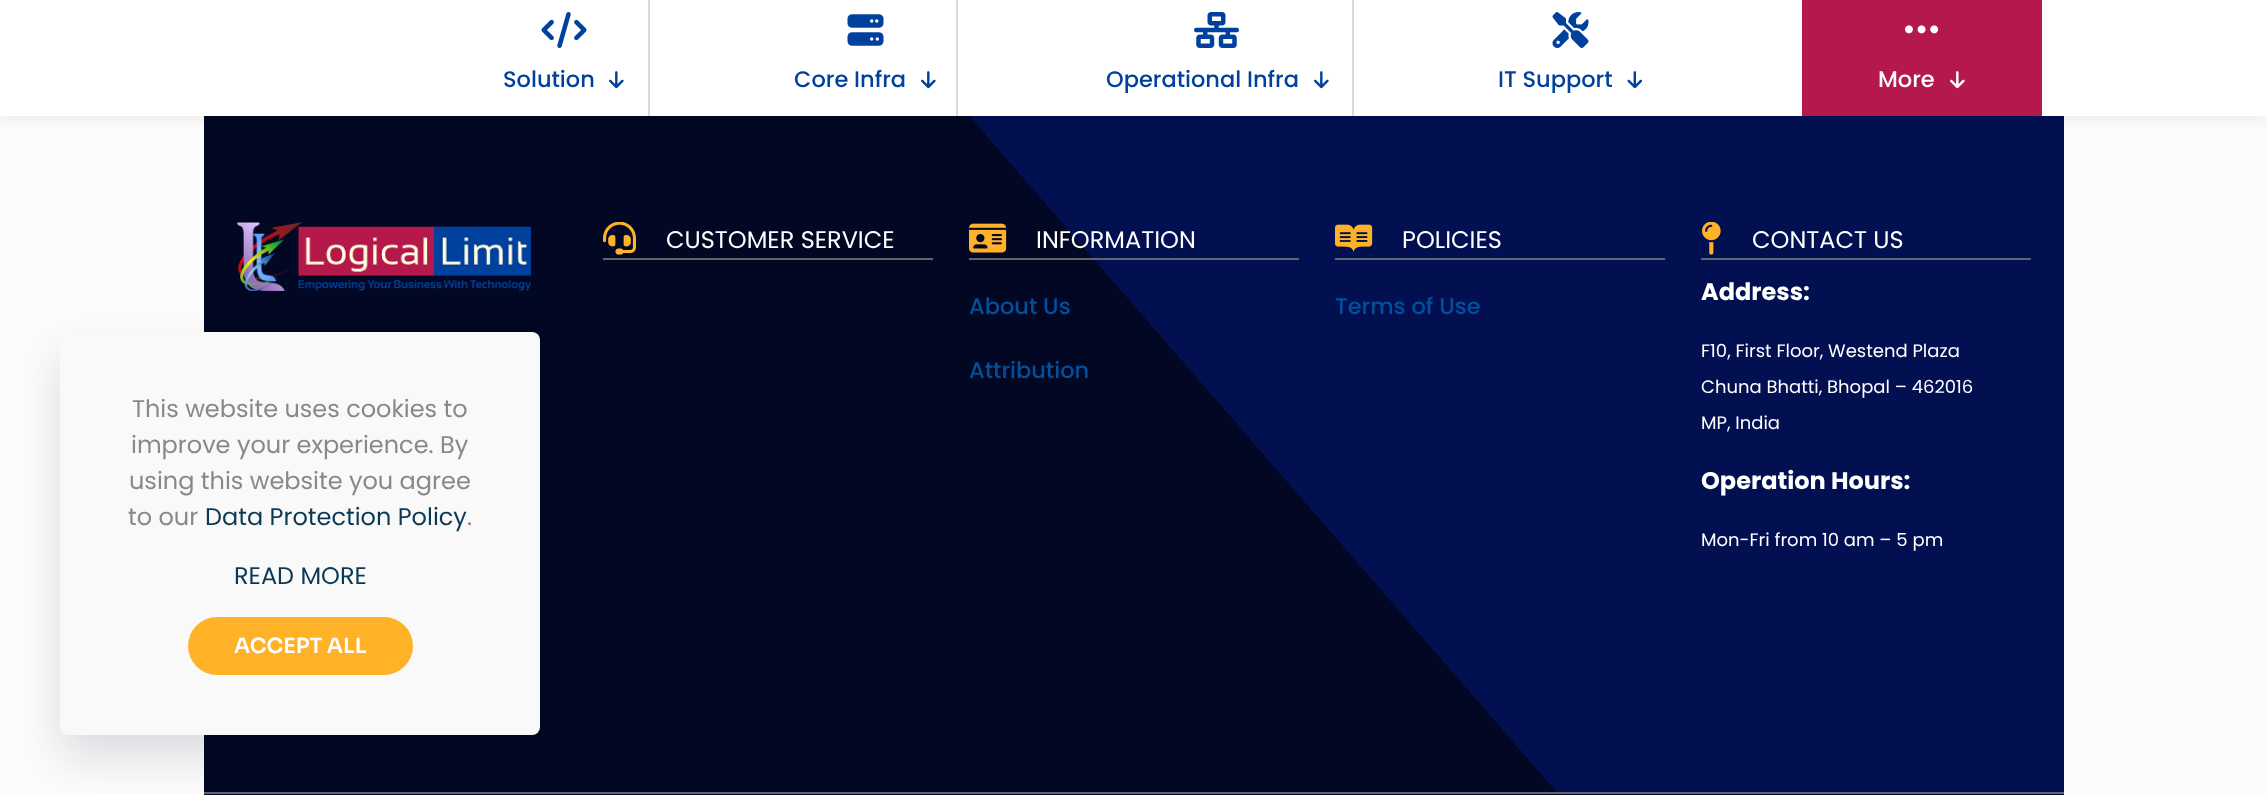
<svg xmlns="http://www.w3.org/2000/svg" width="2267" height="795">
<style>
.a{font:24px Poppins;fill:#888}
.b{font:24px Poppins;fill:#0b3954}
.c{font:600 21px Sora;fill:#fff}
.d{font:500 22.5px Poppins;fill:#00419d}
.e{font:500 22.5px Poppins;fill:#fff}
.f{font:24px Poppins;fill:#fff}
.g{font:500 22.5px Poppins;fill:#00509d}
.h{font:bold 24px Poppins;fill:#fff}
.i{font:18px Poppins;fill:#fff}
</style>
<defs>
<linearGradient id="g1" gradientUnits="userSpaceOnUse" x1="1835" y1="-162" x2="433" y2="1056"><stop offset="0.45" stop-color="#021052"/><stop offset="0.45" stop-color="#020723"/></linearGradient>
<radialGradient id="g2" gradientUnits="userSpaceOnUse" cx="0" cy="0" r="1" gradientTransform="matrix(1315 0 0 110 1134 872)"><stop offset="0.25" stop-color="#021052"/><stop offset="0.63" stop-color="#030a2d"/></radialGradient>
</defs>
<rect width="100%" height="100%" fill="#fcfcfc"/>
<path fill="url(#g1)" d="M204 116h1860v676H204z"/>
<image href="9.png" x="237" y="222" width="294" height="69"/>
<path fill="url(#g2)" d="M204 794h1860v1H204z"/>
<path fill="#5c676d" d="M204 792h1860v2H204z"/>
<rect fill="#01072721" filter="blur(22.5px)" x="60" y="354" width="480" height="404" rx="8"/>
<rect fill="#f9f9f9" x="60" y="332" width="480" height="403" rx="8"/>
<rect fill="#ffb128" x="188" y="617" width="225" height="58" rx="29"/>
<path fill="#0000000d" filter="blur(6px)" d="M0 6h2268v116H0z"/>
<path fill="#fff" d="M0 0h2267v116H0z"/>
<image href="1.png" x="541" y="12" width="46" height="36"/>
<image href="2.png" x="609" y="71" width="15" height="18"/>
<path fill="#d9dadf" d="M648 0h2v116H648z"/>
<image href="3.png" x="847" y="14" width="37" height="32"/>
<image href="2.png" x="921" y="71" width="15" height="18"/>
<path fill="#d9dadf" d="M956 0h2v116H956z"/>
<image href="4.png" x="1194" y="12" width="45" height="36"/>
<image href="2.png" x="1314" y="71" width="15" height="18"/>
<path fill="#d9dadf" d="M1352 0h2v116H1352z"/>
<image href="5.png" x="1552" y="12" width="37" height="36"/>
<image href="6.png" x="1627" y="71" width="16" height="18"/>
<path fill="#b5194c" d="M1802 0h240v116H1802z"/>
<image href="7.png" x="1905" y="25" width="34" height="9"/>
<image href="8.png" x="1950" y="71" width="15" height="18"/>
<path fill="#5c676d" d="M603 258h330v2H603z"/>
<image href="10.png" x="603" y="222" width="33" height="33"/>
<path fill="#5c676d" d="M969 258h330v2H969z"/>
<image href="11.png" x="969" y="223" width="38" height="30"/>
<path fill="#5c676d" d="M1335 258h330v2H1335z"/>
<image href="12.png" x="1335" y="224" width="38" height="28"/>
<path fill="#5c676d" d="M1701 258h330v2H1701z"/>
<image href="13.png" x="1702" y="222" width="19" height="33"/>
<text class="a" x="132" y="417">This website uses cookies to</text>
<text class="a" x="131" y="453">improve your experience. By</text>
<text class="a" x="129" y="489">using this website you agree</text>
<text class="a" x="128" y="525">to our</text>
<text class="b" x="205" y="525">Data Protection Policy</text>
<text class="a" x="467" y="525">.</text>
<text class="b" x="234" y="584">READ MORE</text>
<text class="c" x="234" y="653">ACCEPT ALL</text>
<text class="d" x="503" y="87">Solution</text>
<text class="d" x="794" y="87">Core Infra</text>
<text class="d" x="1106" y="87">Operational Infra</text>
<text class="d" x="1498" y="87">IT Support</text>
<text class="e" x="1878" y="87">More</text>
<text class="f" x="666" y="248">CUSTOMER SERVICE</text>
<text class="f" x="1036" y="248">INFORMATION</text>
<text class="g" x="969" y="314">About Us</text>
<text class="g" x="969" y="378">Attribution</text>
<text class="f" x="1402" y="248">POLICIES</text>
<text class="g" x="1335" y="314">Terms of Use</text>
<text class="f" x="1752" y="248">CONTACT US</text>
<text class="h" x="1701" y="300">Address:</text>
<text class="i" x="1701" y="357">F10, First Floor, Westend Plaza</text>
<text class="i" x="1701" y="393">Chuna Bhatti, Bhopal – 462016</text>
<text class="i" x="1701" y="429">MP, India</text>
<text class="h" x="1701" y="489">Operation Hours:</text>
<text class="i" x="1701" y="546">Mon-Fri from 10 am – 5 pm</text>
</svg>
